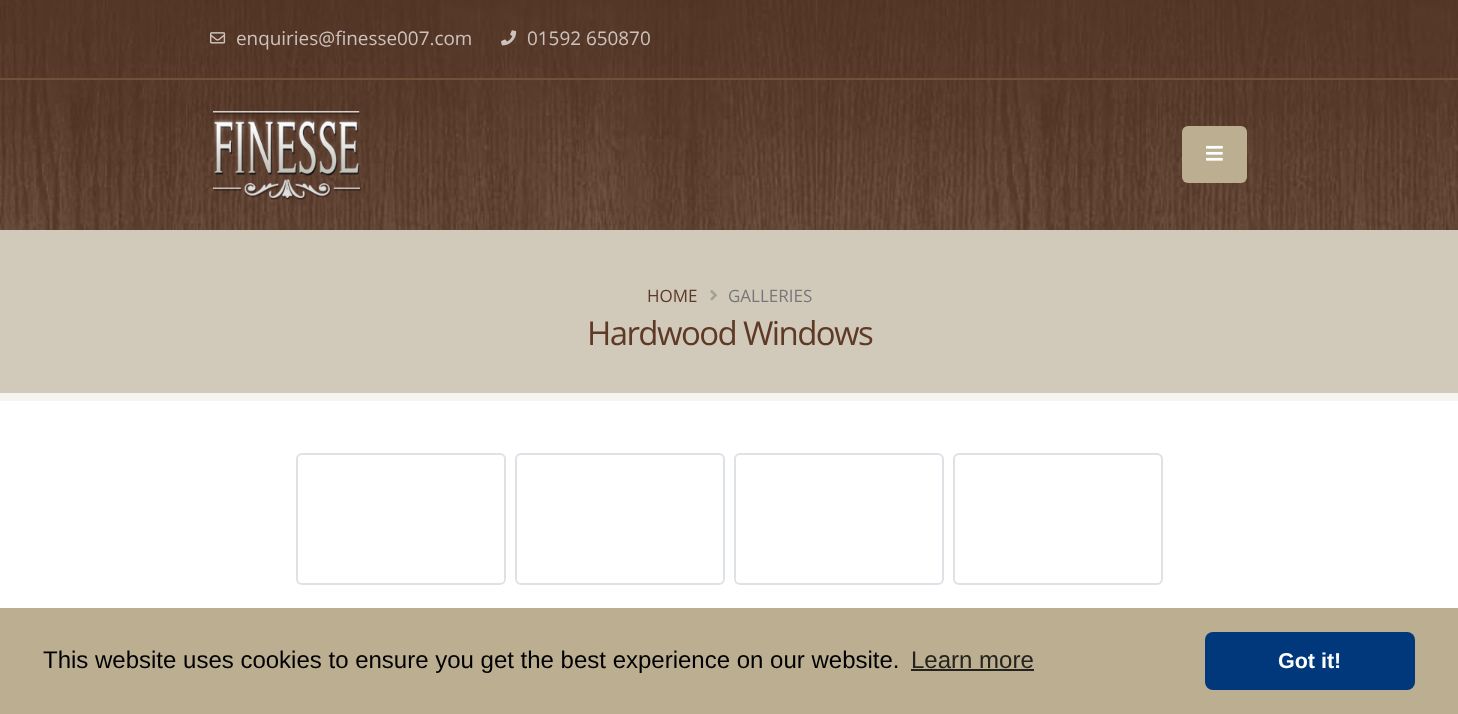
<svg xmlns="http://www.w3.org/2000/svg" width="1458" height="714">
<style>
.a{font:18.9px Open Sans;fill:#ccc3be}
.b{font:17px Open Sans;fill:#5e3926}
.c{font:17px Open Sans;fill:#777}
.d{font:33px Open Sans;letter-spacing:-1.6px;fill:#5e3926}
.e{font:24px Liberation Sans;fill:#000}
.f{font:24px Liberation Sans;fill:#25231d}
.g{font:bold 21.5px Liberation Sans;fill:#fff}
</style>
<rect width="100%" height="100%" fill="#fff"/>
<image href="1.png" x="0" y="0" width="1458" height="230"/>
<path fill="#71503b" d="M0 78h1458v2H0z"/>
<image href="2.png" x="210" y="32" width="16" height="12"/>
<image href="3.png" x="501" y="30" width="16" height="16"/>
<image href="4.png" x="212" y="111" width="149" height="89"/>
<rect fill="#bbae91" x="1182" y="126" width="65" height="57" rx="6"/>
<image href="5.png" x="1206" y="145" width="17" height="16"/>
<path fill="#d1cabb" d="M0 230h1458v163H0z"/>
<image href="6.png" x="710" y="290" width="7" height="11"/>
<path fill="#f6f4f1" d="M0 393h1458v8H0z"/>
<rect fill="none" stroke="#dee2e6" stroke-width="2" x="297" y="454" width="208" height="130" rx="5"/>
<rect fill="none" stroke="#dee2e6" stroke-width="2" x="516" y="454" width="208" height="130" rx="5"/>
<rect fill="none" stroke="#dee2e6" stroke-width="2" x="735" y="454" width="208" height="130" rx="5"/>
<rect fill="none" stroke="#dee2e6" stroke-width="2" x="954" y="454" width="208" height="130" rx="5"/>
<path fill="#bbae91" d="M0 608h1458v106H0z"/>
<path fill="#25231d" d="M911 669h123v2H911z"/>
<rect fill="#00387b" x="1205" y="632" width="210" height="58" rx="8"/>
<text class="a" x="236" y="45">enquiries@finesse007.com</text>
<text class="a" x="527" y="45">01592 650870</text>
<text class="b" x="647" y="302">HOME</text>
<text class="c" x="728" y="302">GALLERIES</text>
<text class="d" x="587" y="345">Hardwood Windows</text>
<text class="e" x="43" y="668">This website uses cookies to ensure you get the best experience on our website.</text>
<text class="f" x="911" y="668">Learn more</text>
<text class="g" x="1278" y="668">Got it!</text>
</svg>
